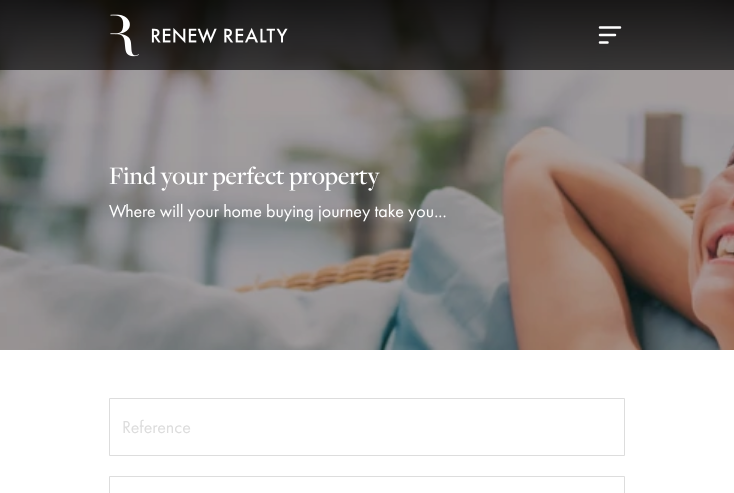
<svg xmlns="http://www.w3.org/2000/svg" width="734" height="493">
<style>
.a{font:500 26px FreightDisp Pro;fill:#fff}
.b{font:18px Futura PT;fill:#fff}
.c{font:18px Futura PT;fill:#ddd}
</style>
<rect width="100%" height="100%" fill="#fff"/>
<image href="2.png" x="0" y="0" width="734" height="350"/>
<image href="1.png" x="110" y="14" width="178" height="43"/>
<path fill="none" stroke="#fff" stroke-width="2.5" stroke-linecap="round" d="M600 42.5h7.5m-7.5-7.5h15m-15-7.5h20"/>
<path fill="none" stroke="#ddd" d="M109.5 398.5h515v57H109.5z"/>
<path fill="none" stroke="#ddd" d="M109.5 476.5h515v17H109.5z"/>
<text class="a" x="109" y="184">Find your perfect property</text>
<text class="b" x="109" y="217">Where will your home buying journey take you...</text>
<text class="c" x="122" y="433">Reference</text>
</svg>
